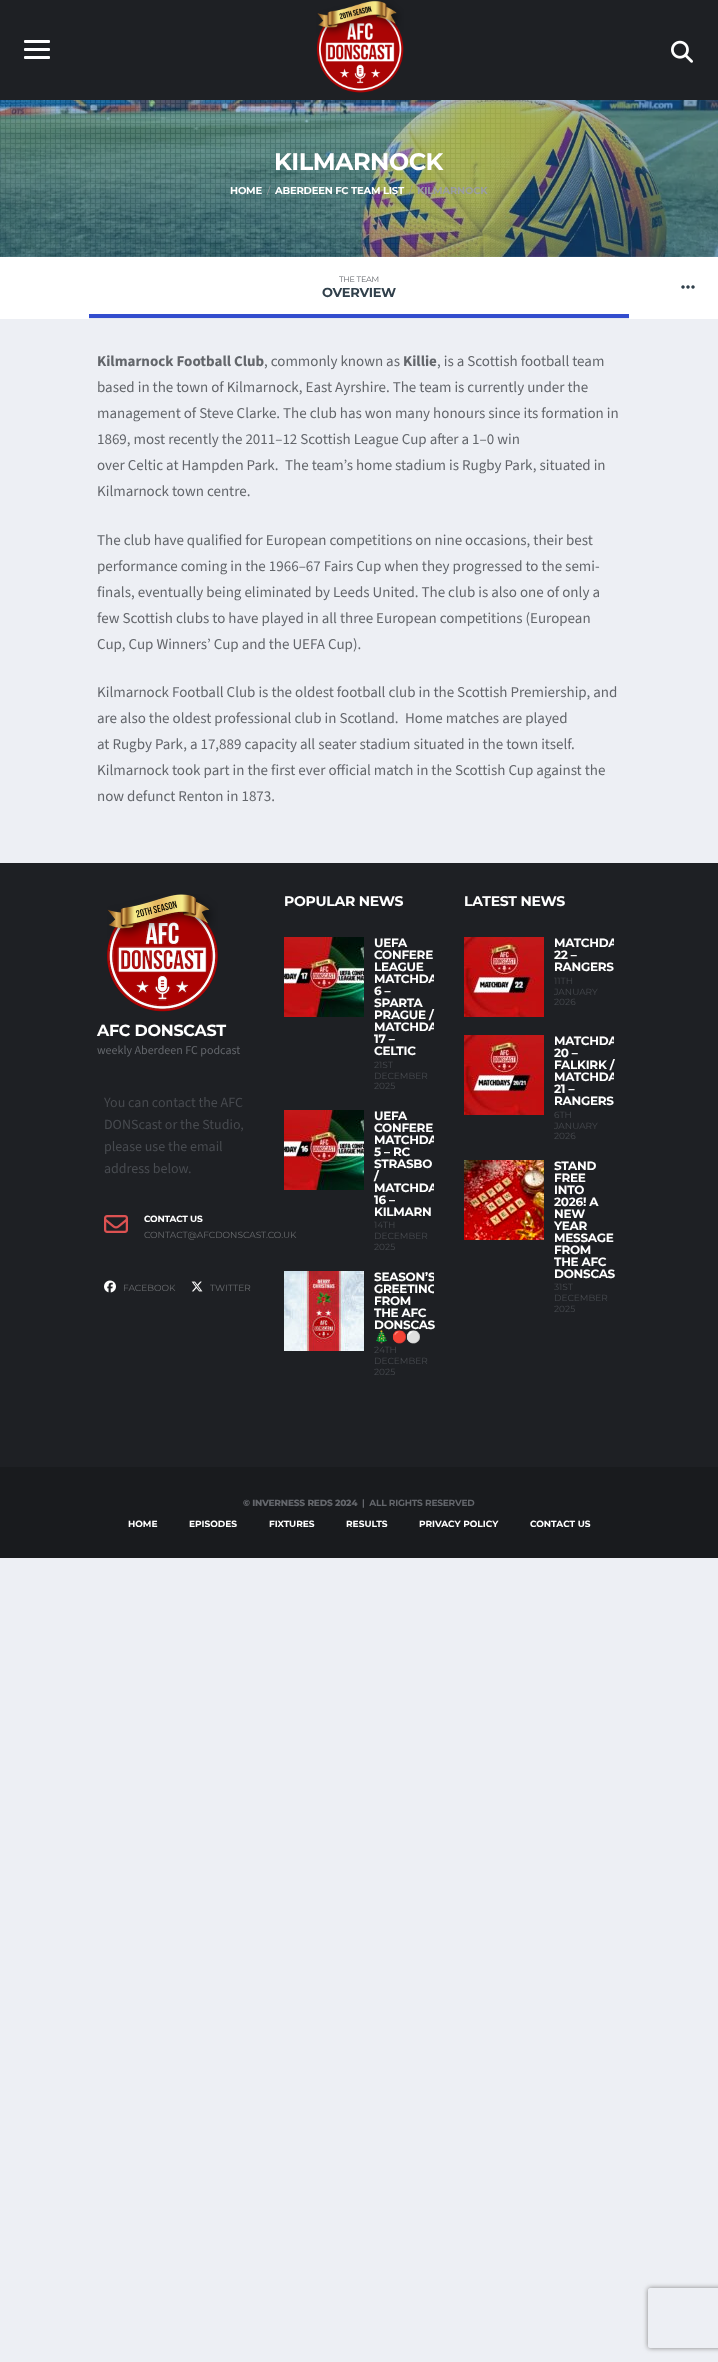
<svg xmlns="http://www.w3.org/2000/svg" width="718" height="2362">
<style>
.a{font:bold 24px Montserrat;letter-spacing:-0.5px;fill:#fff}
.b{font:bold 10px Montserrat;letter-spacing:-0.2px;fill:#fff}
.c{font:10px Montserrat;letter-spacing:-0.2px;fill:#9a9da2}
.d{font:bold 10px Montserrat;letter-spacing:-0.2px;fill:#9a9da2}
.e{font:8px Montserrat;letter-spacing:-0.25px;fill:#63666b}
.f{font:bold 13px Montserrat;letter-spacing:-0.25px;fill:#31404b}
.g{font:bold 15px 'Source Sans 3';fill:#63666b}
.h{font:15px 'Source Sans 3';fill:#63666b}
.i{font:bold 16px Montserrat;letter-spacing:-0.25px;fill:#fff}
.j{font:12px 'Source Sans 3';fill:#63666b}
.k{font:14px 'Source Sans 3';fill:#474a4f}
.l{font:bold 9px Montserrat;letter-spacing:-0.2px;fill:#fff}
.m{font:9px Montserrat;fill:#6b6d70}
.n{font:bold 14px Montserrat;letter-spacing:-0.25px;fill:#fff}
.o{font:bold 12px Montserrat;letter-spacing:-0.25px;fill:#fff}
.p{font:9px Montserrat;fill:#474a4f}
.q{font:bold 12px Noto Color Emoji;letter-spacing:-0.25px;fill:#fff}
.r{font:800 9px Montserrat;letter-spacing:-0.2px;fill:#63666b}
.s{font:bold 9px Montserrat;letter-spacing:-0.2px;fill:#63666b}
.t{font:bold 9px Montserrat;fill:#fff}
</style>
<defs>
<clipPath id="clip1"><path d="M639 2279h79v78h-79zm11 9h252c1 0 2 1 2 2v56c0 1-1 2-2 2h-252c-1 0-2-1-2-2v-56c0-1 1-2 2-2z" clip-rule="evenodd"/></clipPath>
<clipPath id="clip2"><path d="M374 937h60v155H374z"/></clipPath>
<clipPath id="clip3"><path d="M374 1110h60v143H374z"/></clipPath>
<clipPath id="clip4"><path d="M374 1271h60v106H374z"/></clipPath>
<clipPath id="clip5"><path d="M554 937h60v71H554z"/></clipPath>
<clipPath id="clip6"><path d="M554 1035h60v107H554z"/></clipPath>
</defs>
<rect width="100%" height="100%" fill="#edeff4"/>
<path fill="#1e2024" d="M0 0h718v100H0z"/>
<image href="1.png" x="316" y="0" width="88" height="93"/>
<rect fill="#fff" x="24" y="40" width="26" height="3" rx="1"/>
<rect fill="#fff" x="24" y="48" width="26" height="3" rx="1"/>
<rect fill="#fff" x="24" y="56" width="26" height="3" rx="1"/>
<image href="2.png" x="671" y="40" width="22" height="23"/>
<image href="3.png" x="0" y="100" width="718" height="157"/>
<image href="4.png" x="0" y="100" width="546" height="157"/>
<path fill="#fff" d="M0 257h718v62H0z"/>
<path fill="#e4e7ed" d="M89 318h540v1H89z"/>
<path fill="#334dce" d="M89 314h540v4H89z"/>
<image href="5.png" x="681" y="285" width="14" height="4"/>
<path fill="#1e2024" d="M0 863h718v604H0z"/>
<image href="6.png" x="107" y="894" width="111" height="118"/>
<image href="7.png" x="104" y="1215" width="24" height="18"/>
<image href="8.png" x="104" y="1280" width="12" height="13"/>
<image href="9.png" x="191" y="1281" width="12" height="11"/>
<image href="10.png" x="284" y="937" width="80" height="80"/>
<image href="11.png" x="284" y="1110" width="80" height="80"/>
<image href="12.png" x="284" y="1271" width="80" height="80"/>
<image href="13.png" x="464" y="937" width="80" height="80"/>
<image href="14.png" x="464" y="1035" width="80" height="80"/>
<image href="15.png" x="464" y="1160" width="80" height="80"/>
<path fill="#191b1e" d="M0 1467h718v91H0z"/>
<g clip-path="url(#clip1)">
<rect fill="#808080" filter="blur(2.5px)" x="648" y="2288" width="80" height="60" rx="2"/>
</g>
<text class="a" x="274" y="170">KILMARNOCK</text>
<text class="b" x="230" y="194">HOME</text>
<text class="c" x="267" y="194">/</text>
<text class="b" x="275" y="194">ABERDEEN FC TEAM LIST</text>
<text class="c" x="409" y="194">/</text>
<text class="d" x="417" y="194">KILMARNOCK</text>
<text class="e" x="339" y="282">THE TEAM</text>
<text class="f" x="322" y="297">OVERVIEW</text>
<text class="g" x="97" y="366">Kilmarnock Football Club</text>
<text class="h" x="264" y="366">, commonly known as</text>
<text class="g" x="403" y="366">Killie</text>
<text class="h" x="437" y="366">, is a Scottish football team</text>
<text class="h" x="97" y="392">based in the town of Kilmarnock, East Ayrshire. The team is currently under the</text>
<text class="h" x="97" y="418">management of Steve Clarke. The club has won many honours since its formation in</text>
<text class="h" x="97" y="444">1869, most recently the 2011–12 Scottish League Cup after a 1–0 win</text>
<text class="h" x="97" y="470">over Celtic at Hampden Park.</text>
<text class="h" x="285" y="470">The team’s home stadium is Rugby Park, situated in</text>
<text class="h" x="97" y="496">Kilmarnock town centre.</text>
<text class="h" x="97" y="545">The club have qualified for European competitions on nine occasions, their best</text>
<text class="h" x="97" y="571">performance coming in the 1966–67 Fairs Cup when they progressed to the semi-</text>
<text class="h" x="97" y="597">finals, eventually being eliminated by Leeds United. The club is also one of only a</text>
<text class="h" x="97" y="623">few Scottish clubs to have played in all three European competitions (European</text>
<text class="h" x="97" y="649">Cup, Cup Winners’ Cup and the UEFA Cup).</text>
<text class="h" x="97" y="697">Kilmarnock Football Club is the oldest football club in the Scottish Premiership, and</text>
<text class="h" x="97" y="723">are also the oldest professional club in Scotland.</text>
<text class="h" x="405" y="723">Home matches are played</text>
<text class="h" x="97" y="749">at Rugby Park, a 17,889 capacity all seater stadium situated in the town itself.</text>
<text class="h" x="97" y="775">Kilmarnock took part in the first ever official match in the Scottish Cup against the</text>
<text class="h" x="97" y="801">now defunct Renton in 1873.</text>
<text class="i" x="97" y="1036">AFC DONSCAST</text>
<text class="j" x="97" y="1054">weekly Aberdeen FC podcast</text>
<text class="k" x="104" y="1107">You can contact the AFC</text>
<text class="k" x="104" y="1129">DONScast or the Studio,</text>
<text class="k" x="104" y="1151">please use the email</text>
<text class="k" x="104" y="1173">address below.</text>
<text class="l" x="144" y="1222">CONTACT US</text>
<text class="m" x="144" y="1238">CONTACT@AFCDONSCAST.CO.UK</text>
<text class="m" x="123" y="1291">FACEBOOK</text>
<text class="m" x="210" y="1291">TWITTER</text>
<text class="n" x="284" y="906">POPULAR NEWS</text>
<text class="o" x="374" y="947">UEFA</text>
<text class="o" x="374" y="959">CONFERE</text>
<text class="o" x="374" y="971">LEAGUE</text>
<g clip-path="url(#clip2)">
<text class="o" x="374" y="983">MATCHDA</text>
</g>
<text class="o" x="374" y="995">6 –</text>
<text class="o" x="374" y="1007">SPARTA</text>
<text class="o" x="374" y="1019">PRAGUE /</text>
<g clip-path="url(#clip2)">
<text class="o" x="374" y="1031">MATCHDA</text>
</g>
<text class="o" x="374" y="1043">17 –</text>
<text class="o" x="374" y="1055">CELTIC</text>
<text class="p" x="374" y="1068">21ST</text>
<text class="p" x="374" y="1079">DECEMBER</text>
<text class="p" x="374" y="1089">2025</text>
<text class="o" x="374" y="1120">UEFA</text>
<text class="o" x="374" y="1132">CONFERE</text>
<g clip-path="url(#clip3)">
<text class="o" x="374" y="1144">MATCHDA</text>
</g>
<text class="o" x="374" y="1156">5 – RC</text>
<text class="o" x="374" y="1168">STRASBO</text>
<text class="o" x="374" y="1180">/</text>
<g clip-path="url(#clip3)">
<text class="o" x="374" y="1192">MATCHDA</text>
</g>
<text class="o" x="374" y="1204">16 –</text>
<text class="o" x="374" y="1216">KILMARN</text>
<text class="p" x="374" y="1228">14TH</text>
<text class="p" x="374" y="1239">DECEMBER</text>
<text class="p" x="374" y="1250">2025</text>
<g clip-path="url(#clip4)">
<text class="o" x="374" y="1281">SEASON’S</text>
<text class="o" x="374" y="1293">GREETING</text>
</g>
<text class="o" x="374" y="1305">FROM</text>
<text class="o" x="374" y="1317">THE AFC</text>
<text class="o" x="374" y="1329">DONSCAS</text>
<text class="q" x="374" y="1341">🎄</text>
<text class="q" x="392" y="1341">🔴⚪️</text>
<text class="p" x="374" y="1353">24TH</text>
<text class="p" x="374" y="1364">DECEMBER</text>
<text class="p" x="374" y="1375">2025</text>
<text class="n" x="464" y="906">LATEST NEWS</text>
<g clip-path="url(#clip5)">
<text class="o" x="554" y="947">MATCHDA</text>
</g>
<text class="o" x="554" y="959">22 –</text>
<text class="o" x="554" y="971">RANGERS</text>
<text class="p" x="554" y="984">11TH</text>
<text class="p" x="554" y="995">JANUARY</text>
<text class="p" x="554" y="1005">2026</text>
<g clip-path="url(#clip6)">
<text class="o" x="554" y="1045">MATCHDA</text>
</g>
<text class="o" x="554" y="1057">20 –</text>
<text class="o" x="554" y="1069">FALKIRK /</text>
<g clip-path="url(#clip6)">
<text class="o" x="554" y="1081">MATCHDA</text>
</g>
<text class="o" x="554" y="1093">21 –</text>
<text class="o" x="554" y="1105">RANGERS</text>
<text class="p" x="554" y="1118">6TH</text>
<text class="p" x="554" y="1129">JANUARY</text>
<text class="p" x="554" y="1139">2026</text>
<text class="o" x="554" y="1170">STAND</text>
<text class="o" x="554" y="1182">FREE</text>
<text class="o" x="554" y="1194">INTO</text>
<text class="o" x="554" y="1206">2026! A</text>
<text class="o" x="554" y="1218">NEW</text>
<text class="o" x="554" y="1230">YEAR</text>
<text class="o" x="554" y="1242">MESSAGE</text>
<text class="o" x="554" y="1254">FROM</text>
<text class="o" x="554" y="1266">THE AFC</text>
<text class="o" x="554" y="1278">DONSCAS</text>
<text class="p" x="554" y="1290">31ST</text>
<text class="p" x="554" y="1301">DECEMBER</text>
<text class="p" x="554" y="1312">2025</text>
<text class="r" x="243" y="1506">© INVERNESS REDS 2024</text>
<text class="s" xml:space="preserve" x="362" y="1506">|  ALL RIGHTS RESERVED</text>
<text class="t" x="128" y="1527">HOME</text>
<text class="t" x="189" y="1527">EPISODES</text>
<text class="t" x="269" y="1527">FIXTURES</text>
<text class="t" x="346" y="1527">RESULTS</text>
<text class="t" x="419" y="1527">PRIVACY POLICY</text>
<text class="t" x="530" y="1527">CONTACT US</text>
</svg>
